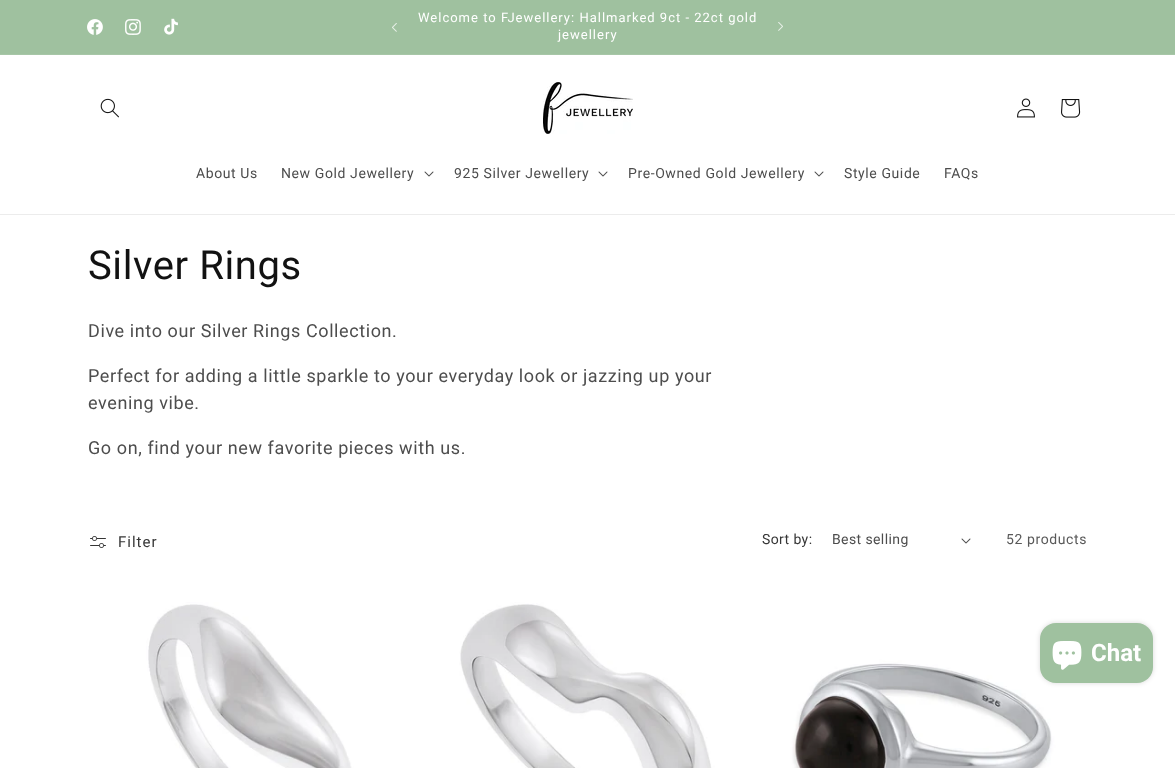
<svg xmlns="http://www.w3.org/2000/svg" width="1175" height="768">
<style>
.a{font:13px Roboto;letter-spacing:1px;fill:#fff}
.b{font:14px Roboto;letter-spacing:0.6px;fill:#4d4d4d}
.c{font:40px Roboto;letter-spacing:0.6px;fill:#121212}
.d{font:18px Roboto;letter-spacing:0.6px;fill:#4d4d4d}
.e{font:15px Roboto;letter-spacing:1px;fill:#363636}
.f{font:14px Roboto;letter-spacing:0.4px;fill:#363636}
.g{font:14px Roboto;letter-spacing:0.4px;fill:#4d4d4d}
.h{font:14px Roboto;letter-spacing:0.6px;fill:#595959}
.i{font:bold 24px Roboto;fill:#fff}
</style>
<rect width="100%" height="100%" fill="#fff"/>
<path fill="#9fc19f" d="M0 0h1175v54H0z"/>
<path fill="#a7c6a7" d="M0 54h1175v1H0z"/>
<image href="1.png" x="87" y="19" width="16" height="16"/>
<image href="2.png" x="125" y="19" width="16" height="16"/>
<image href="3.png" x="164" y="18" width="14" height="17"/>
<image href="4.png" x="392" y="23" width="5" height="9"/>
<image href="5.png" x="778" y="22" width="5" height="9"/>
<path fill="#ececec" d="M0 214h1175v1H0z"/>
<image href="6.png" x="100" y="98" width="19" height="20"/>
<image href="7.png" x="543" y="82" width="90" height="52"/>
<image href="8.png" x="1017" y="98" width="18" height="20"/>
<image href="9.png" x="1061" y="99" width="20" height="19"/>
<image href="10.png" x="424" y="171" width="10" height="6"/>
<image href="10.png" x="598" y="171" width="10" height="6"/>
<image href="10.png" x="814" y="171" width="10" height="6"/>
<image href="11.png" x="90" y="536" width="16" height="12"/>
<image href="10.png" x="961" y="538" width="10" height="6"/>
<image href="12.png" x="88" y="573" width="327" height="195"/>
<image href="13.png" x="423" y="573" width="328" height="195"/>
<image href="14.png" x="759" y="573" width="328" height="195"/>
<rect fill="#00000026" filter="blur(2.5px)" x="1040" y="623" width="113" height="60" rx="16"/>
<rect fill="#9fc19f" x="1040" y="623" width="113" height="60" rx="16"/>
<image href="15.png" x="1052" y="641" width="30" height="29"/>
<text class="a" x="418" y="22">Welcome to FJewellery: Hallmarked 9ct - 22ct gold</text>
<text class="a" x="558" y="39">jewellery</text>
<text class="b" x="196" y="178">About Us</text>
<text class="b" x="281" y="178">New Gold Jewellery</text>
<text class="b" x="454" y="178">925 Silver Jewellery</text>
<text class="b" x="628" y="178">Pre-Owned Gold Jewellery</text>
<text class="b" x="844" y="178">Style Guide</text>
<text class="b" x="944" y="178">FAQs</text>
<text class="c" x="88" y="279">Silver Rings</text>
<text class="d" x="88" y="337">Dive into our Silver Rings Collection.</text>
<text class="d" x="88" y="382">Perfect for adding a little sparkle to your everyday look or jazzing up your</text>
<text class="d" x="88" y="409">evening vibe.</text>
<text class="d" x="88" y="454">Go on, find your new favorite pieces with us.</text>
<text class="e" x="118" y="547">Filter</text>
<text class="f" x="762" y="544">Sort by:</text>
<text class="g" x="832" y="544">Best selling</text>
<text class="h" x="1006" y="544">52 products</text>
<text class="i" x="1091" y="661">Chat</text>
</svg>
